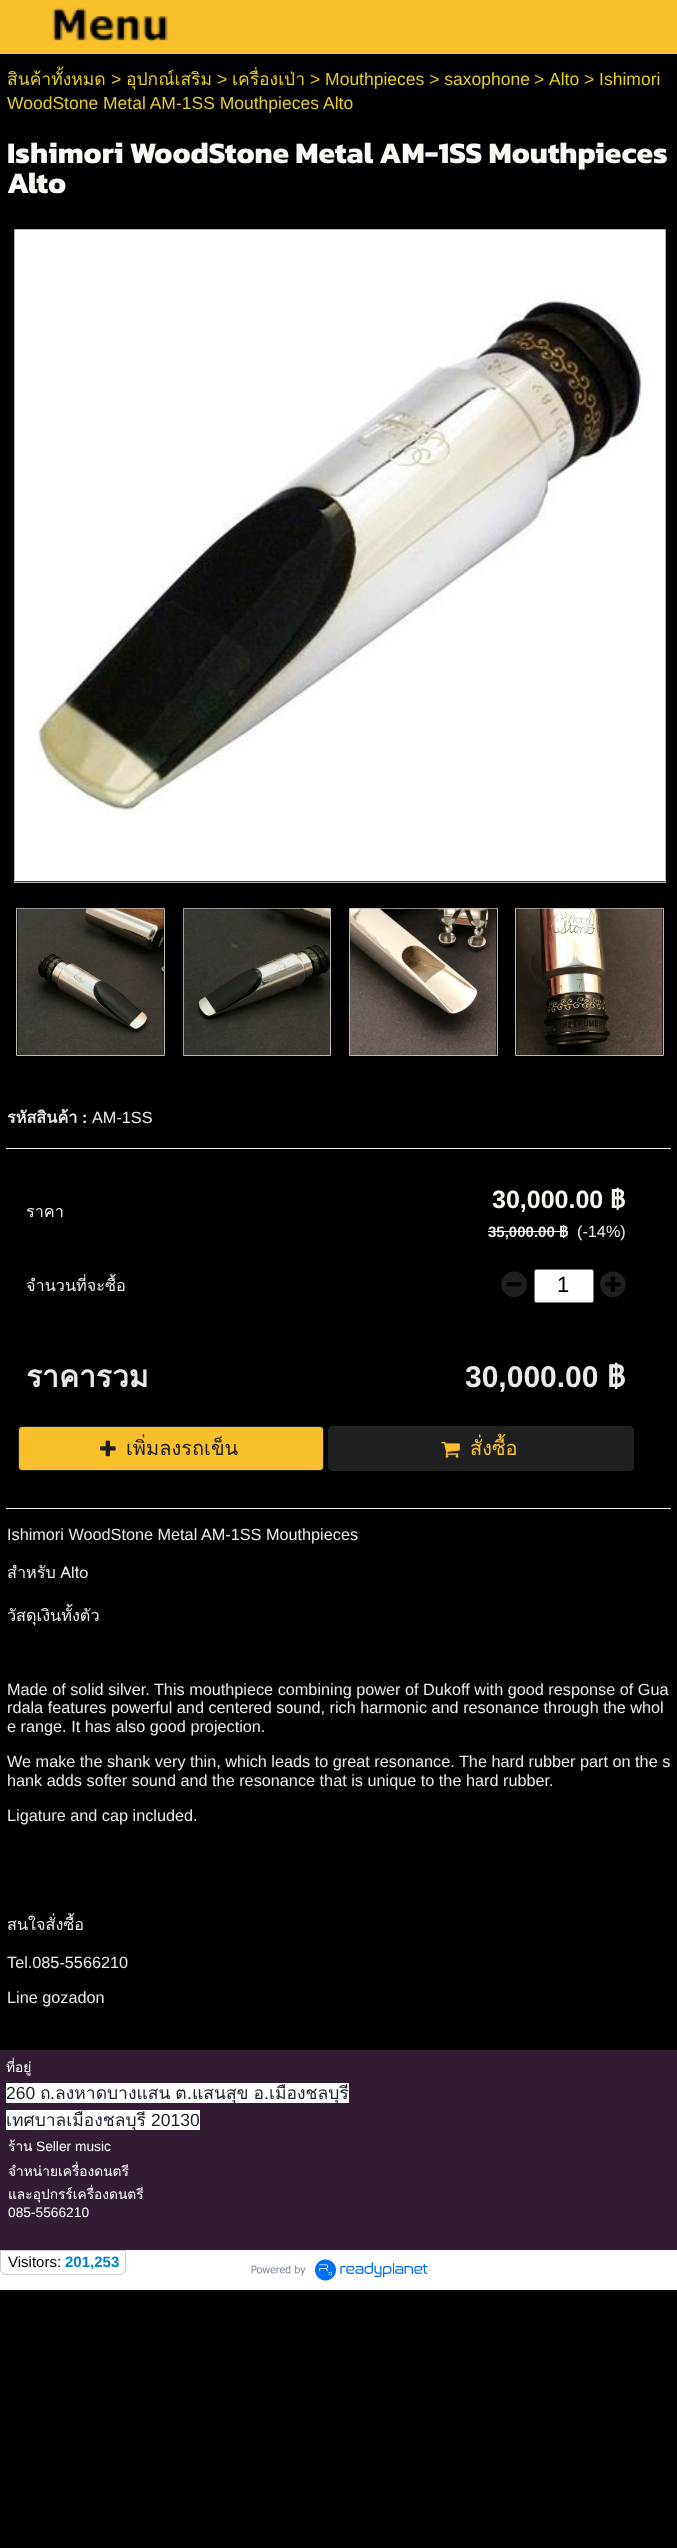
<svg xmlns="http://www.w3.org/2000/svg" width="677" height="2548">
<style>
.a{font:17.5px Loma;fill:#e3cd26}
.b{font:17.5px Liberation Sans;fill:#e3cd26}
.c{font:bold 30px Kanit;fill:#faf8f2}
.d{font:bold 16.25px Loma;fill:#ede8ed}
.e{font:bold 16.25px Liberation Sans;fill:#ede8ed}
.f{font:16.25px Liberation Sans;fill:#ede8ed}
.g{font:16.25px Loma;fill:#ede8ed}
.h{font:bold 25px Liberation Sans;fill:#faf8f2}
.i{font:bold 25px Loma;fill:#faf8f2}
.j{font:bold 15px Liberation Sans;fill:#ede8ed}
.k{font:bold 15px Loma;fill:#ede8ed}
.l{font:22px Liberation Sans;fill:#000}
.m{font:bold 30px Loma;fill:#ede8ed}
.n{font:bold 30px Liberation Sans;fill:#ede8ed}
.o{font:20px Loma;fill:#202020}
.p{font:20px Loma;fill:#fac02c}
.q{font:13.75px Loma;fill:#fff}
.r{font:17.5px Liberation Sans;fill:#1d2129}
.s{font:17.5px Loma;fill:#1d2129}
.t{font:13.75px Liberation Sans;fill:#fff}
.u{font:15px Liberation Sans;fill:#000}
.v{font:bold 15px Liberation Sans;fill:#0081c8}
</style>
<rect width="100%" height="100%" fill="#000"/>
<path fill="#fac02c" d="M0 0h677v54H0z"/>
<image href="1.png" x="52" y="7" width="116" height="36"/>
<path fill="none" stroke="#bbb" d="M14.5 229.5h651v653H14.5z"/>
<image href="2.png" x="15" y="230" width="650" height="652"/>
<path fill="none" stroke="#bbb" d="M16.5 908.5h148v147H16.5z"/>
<image href="3.png" x="17" y="908" width="147" height="147"/>
<path fill="none" stroke="#bbb" d="M183.5 908.5h147v147H183.5z"/>
<image href="4.png" x="183" y="908" width="147" height="147"/>
<path fill="none" stroke="#bbb" d="M349.5 908.5h148v147H349.5z"/>
<image href="5.png" x="350" y="908" width="147" height="147"/>
<path fill="none" stroke="#bbb" d="M515.5 908.5h148v147H515.5z"/>
<image href="6.png" x="516" y="908" width="147" height="147"/>
<path fill="#eee" d="M6 1148h665v1H6z"/>
<path fill="#eee" d="M6 1508h665v1H6z"/>
<path fill="#ede8ed" d="M488 1231h80v1H488z"/>
<image href="7.png" x="501" y="1271" width="26" height="26"/>
<rect fill="#fff" stroke="#767676" x="534.5" y="1269.5" width="59" height="33" rx="2"/>
<image href="8.png" x="600" y="1271" width="26" height="26"/>
<rect fill="#fac02c" stroke="#202020" x="18.5" y="1426.5" width="305" height="44" rx="3.5"/>
<image href="9.png" x="100" y="1440" width="16" height="17"/>
<rect fill="#202020" stroke="#202020" x="328.5" y="1426.5" width="305" height="44" rx="3.5"/>
<image href="10.png" x="441" y="1441" width="19" height="17"/>
<path fill="#311c33" d="M0 2050h677v200H0z"/>
<path fill="#fff" d="M6 2083h343v20H6z"/>
<path fill="#fff" d="M6 2110h194v20H6z"/>
<path fill="#fff" d="M0 2250h677v40H0z"/>
<image href="11.png" x="251" y="2259" width="177" height="22"/>
<path fill="none" stroke="#ccc" d="M.5 2250.5h125v18.5c0 3-2.5 5.5-5.5 5.5h-114c-3 0-5.5-2.5-5.5-5.5z"/>
<text class="a" x="7" y="85">สินค้าทั้งหมด</text>
<text class="b" x="111" y="85">&gt;</text>
<text class="a" x="126" y="85">อุปกณ์เสริม</text>
<text class="b" x="217" y="85">&gt;</text>
<text class="a" x="232" y="85">เครื่องเป่า</text>
<text class="b" x="310" y="85">&gt; Mouthpieces &gt; saxophone</text>
<text class="b" x="534" y="85">&gt;</text>
<text class="b" x="549" y="85">Alto &gt; Ishimori</text>
<text class="b" x="7" y="109">WoodStone Metal AM-1SS Mouthpieces</text>
<text class="b" x="323" y="109">Alto</text>
<text class="c" x="7" y="163">Ishimori WoodStone Metal AM-1SS Mouthpieces</text>
<text class="c" x="7" y="193">Alto</text>
<text class="d" x="7" y="1123">รหัสสินค้า</text>
<text class="e" x="82" y="1123">:</text>
<text class="f" x="92" y="1123">AM-1SS</text>
<text class="g" x="26" y="1217">ราคา</text>
<text class="h" x="492" y="1208">30,000.00</text>
<text class="i" x="610" y="1208">฿</text>
<text class="j" x="488" y="1237">35,000.00</text>
<text class="k" x="559" y="1237">฿</text>
<text class="f" x="577" y="1237">(-14%)</text>
<text class="g" x="26" y="1291">จำนวนที่จะซื้อ</text>
<text class="l" x="557" y="1292">1</text>
<text class="m" x="26" y="1387">ราคารวม</text>
<text class="n" x="465" y="1387">30,000.00</text>
<text class="m" x="607" y="1387">฿</text>
<text class="o" x="126" y="1455">เพิ่มลงรถเข็น</text>
<text class="p" x="470" y="1455">สั่งซื้อ</text>
<text class="f" x="7" y="1540">Ishimori WoodStone Metal AM-1SS Mouthpieces</text>
<text class="g" x="7" y="1578" word-spacing="-1">สำหรับ Alto</text>
<text class="g" x="7" y="1621">วัสดุเงินทั้งตัว</text>
<text class="f" x="7" y="1695">Made of solid silver. This mouthpiece combining power of Dukoff with good response of Gua</text>
<text class="f" x="7" y="1713">rdala features powerful and centered sound, rich harmonic and resonance through the whol</text>
<text class="f" x="7" y="1732">e range. It has also good projection.</text>
<text class="f" x="7" y="1767">We make the shank very thin, which leads to great resonance. The hard rubber part on the s</text>
<text class="f" x="7" y="1786">hank adds softer sound and the resonance that is unique to the hard rubber.</text>
<text class="f" x="7" y="1821">Ligature and cap included.</text>
<text class="g" x="7" y="1930">สนใจสั่งซื้อ</text>
<text class="f" x="7" y="1968">Tel.085-5566210</text>
<text class="f" x="7" y="2003">Line gozadon</text>
<text class="q" x="6" y="2072">ที่อยู่</text>
<text class="r" x="6" y="2099">260</text>
<text class="s" x="40" y="2099">ถ</text>
<text class="r" x="50" y="2099">.</text>
<text class="s" x="55" y="2099" word-spacing="-1">ลงหาดบางแสน ต</text>
<text class="r" x="187" y="2099">.</text>
<text class="s" x="192" y="2099" word-spacing="-1">แสนสุข อ</text>
<text class="r" x="264" y="2099">.</text>
<text class="s" x="269" y="2099">เมืองชลบุรี</text>
<text class="s" x="6" y="2126">เทศบาลเมืองชลบุรี</text>
<text class="r" x="151" y="2126">20130</text>
<text class="q" x="8" y="2151">ร้าน</text>
<text class="t" x="36" y="2151">Seller music</text>
<text class="q" x="8" y="2176">จำหน่ายเครื่องดนตรี</text>
<text class="q" x="8" y="2199">และอุปกรร์เครื่องดนตรี</text>
<text class="t" x="8" y="2217">085-5566210</text>
<text class="u" x="8" y="2267">Visitors:</text>
<text class="v" x="65" y="2267">201,253</text>
</svg>
